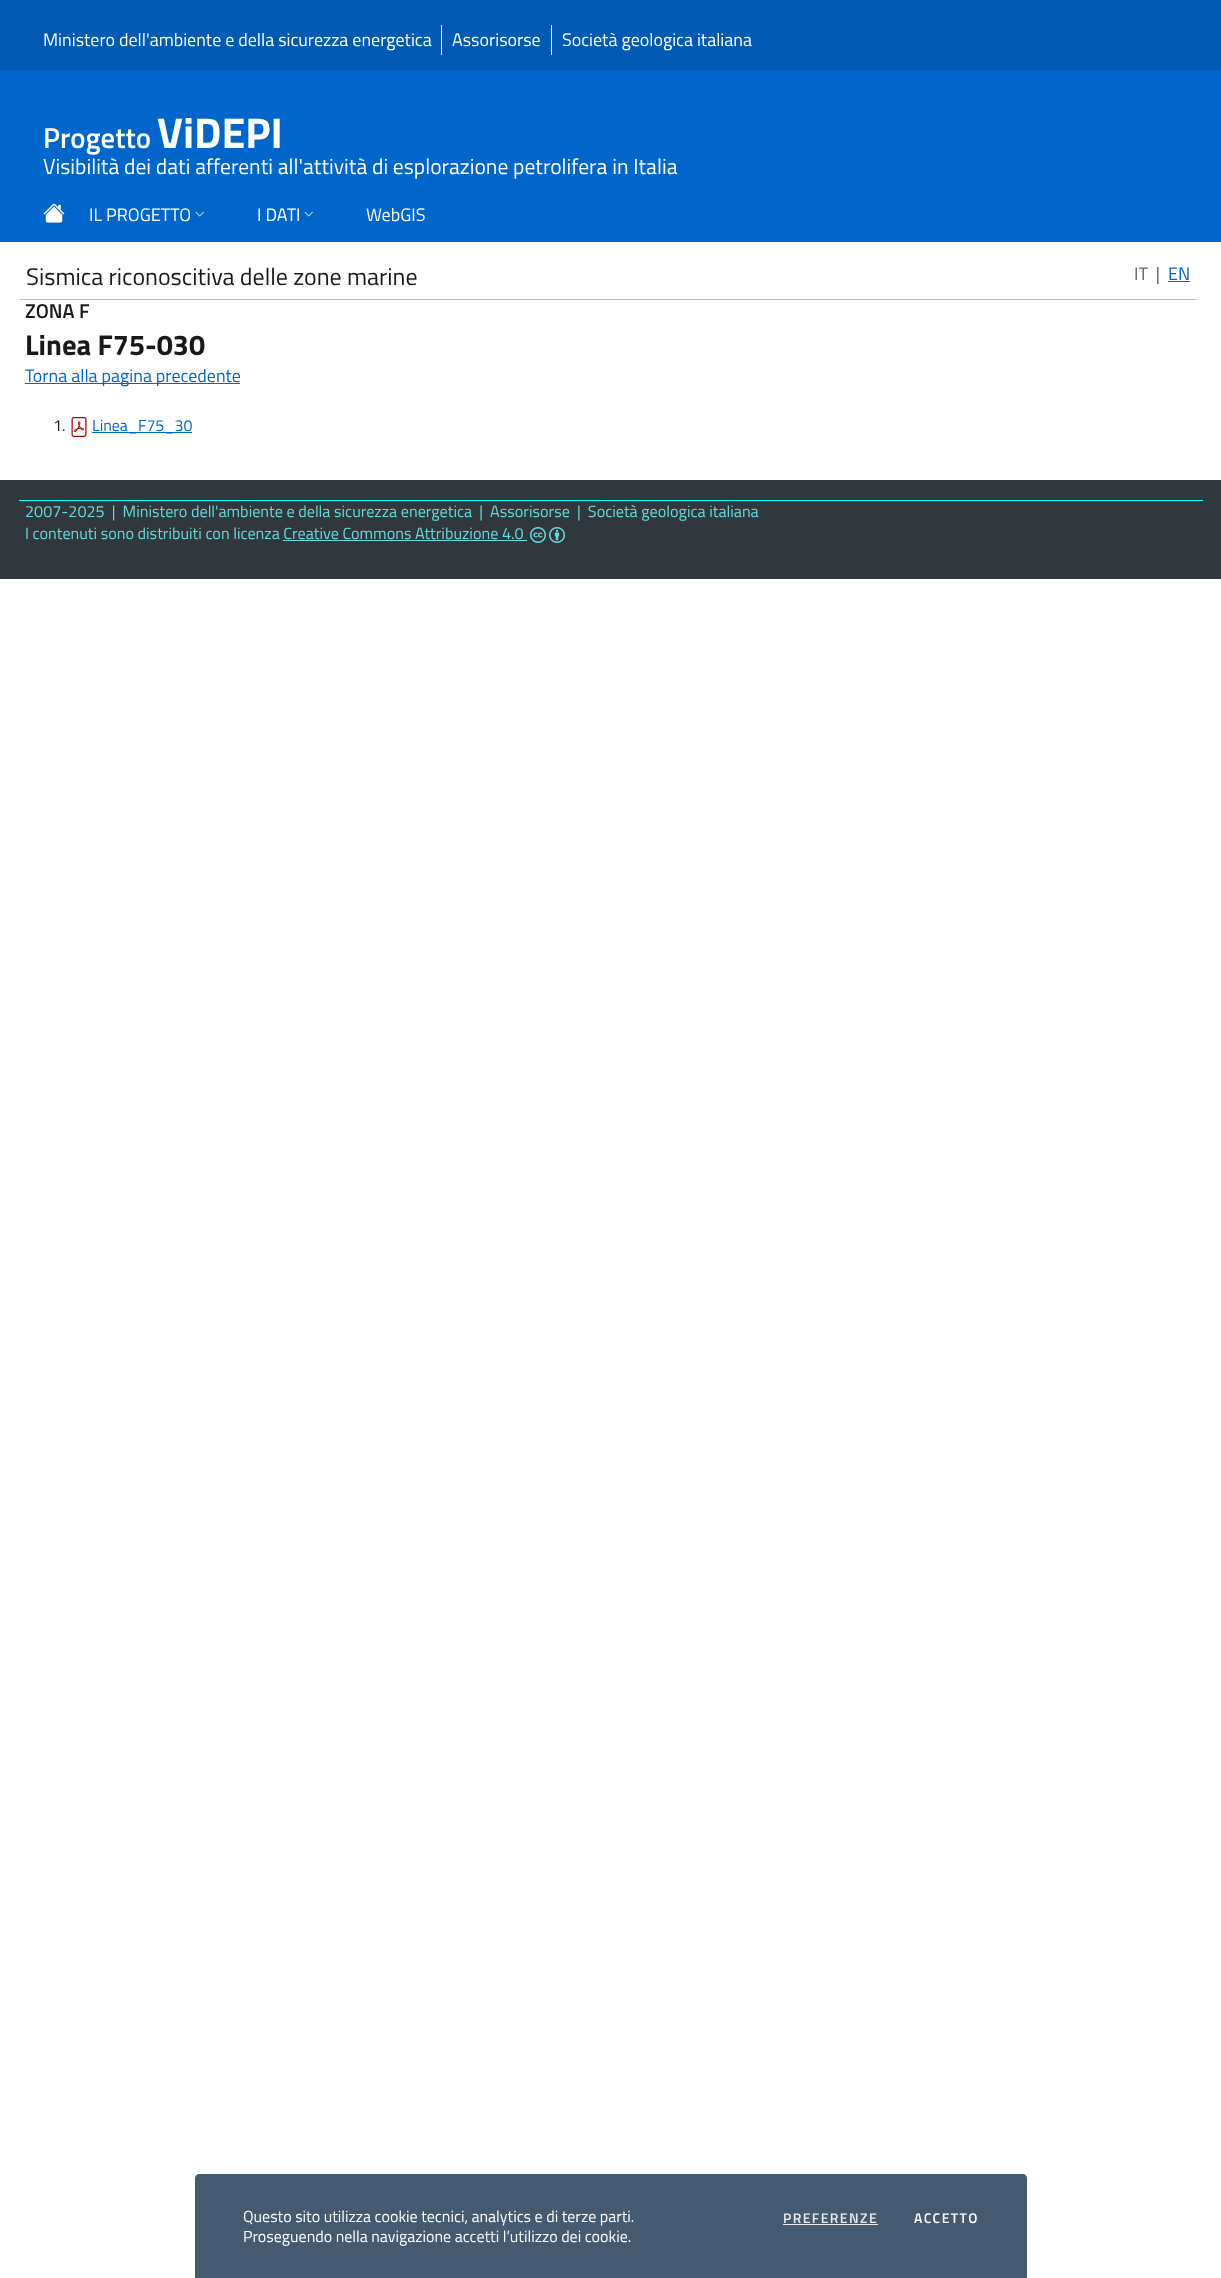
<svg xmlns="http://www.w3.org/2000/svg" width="1221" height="2278">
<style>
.a{font:18px Titillium Web;fill:#fff}
.b{font:600 28.75px Titillium Web;fill:#fff}
.c{font:bold 43px Titillium Web;fill:#fff}
.d{font:21.6px Titillium Web;fill:#fff}
.e{font:24px Titillium Web;fill:#19191a}
.f{font:18px Titillium Web;fill:#606060}
.g{font:18px Titillium Web;fill:#06c}
.h{font:600 20px Titillium Web;fill:#19191a}
.i{font:bold 28.75px Titillium Web;fill:#19191a}
.j{font:16px Titillium Web;fill:#19191a}
.k{font:16px Titillium Web;fill:#06c}
.l{font:16.2px Titillium Web;fill:#65dbde}
.m{font:16px Titillium Web;fill:#fff}
.n{font:600 14px Titillium Web;letter-spacing:1.4px;fill:#e6ecf2}
.o{font:600 14px Titillium Web;letter-spacing:1.4px;fill:#fff}
</style>
<rect width="100%" height="100%" fill="#fff"/>
<path fill="#0059b3" d="M0 0h1221v70H0z"/>
<path fill="#fff" d="M441 25h1v30H441z"/>
<path fill="#fff" d="M551 25h1v30H551z"/>
<path fill="#06c" d="M0 70h1221v172H0z"/>
<image href="1.png" x="43" y="203" width="22" height="20"/>
<image href="2.png" x="195" y="211" width="9" height="6"/>
<image href="2.png" x="304" y="211" width="9" height="6"/>
<path fill="#bcbcbc" d="M20 299h1177v1H20z"/>
<path fill="#06c" d="M1168 281h22v1H1168z"/>
<path fill="#06c" d="M25 383h215v1H25z"/>
<image href="3.png" x="71" y="417" width="16" height="20"/>
<path fill="#06c" d="M92 432h100v1H92z"/>
<path fill="#30373d" d="M0 480h1221v99H0z"/>
<path fill="#0ff" d="M19 500h1184v1H19z"/>
<image href="4.png" x="530" y="527" width="16" height="16"/>
<image href="5.png" x="549" y="527" width="16" height="16"/>
<path fill="#65dbde" d="M283 540h244v1H283z"/>
<path fill="#435a70" d="M199 2174h824c2 0 4 2 4 4v100h-832v-100c0-2 2-4 4-4z"/>
<path fill="#e6ecf2" d="M783 2224h95v1H783z"/>
<text class="a" x="43" y="46">Ministero dell'ambiente e della sicurezza energetica</text>
<text class="a" x="452" y="46">Assorisorse</text>
<text class="a" x="562" y="46">Società geologica italiana</text>
<text class="b" x="43" y="148">Progetto</text>
<text class="c" x="157" y="148">ViDEPI</text>
<text class="d" x="43" y="174">Visibilità dei dati afferenti all'attività di esplorazione petrolifera in Italia</text>
<text class="a" x="89" y="221">IL PROGETTO</text>
<text class="a" x="257" y="221">I DATI</text>
<text class="a" x="366" y="221">WebGIS</text>
<text class="e" x="26" y="285">Sismica riconoscitiva delle zone marine</text>
<text class="f" xml:space="preserve" x="1134" y="280">IT  |</text>
<text class="g" x="1168" y="280">EN</text>
<text class="h" x="25" y="318">ZONA F</text>
<text class="i" x="25" y="355">Linea F75-030</text>
<text class="g" x="25" y="382">Torna alla pagina precedente</text>
<text class="j" x="53" y="431">1.</text>
<text class="k" x="92" y="431">Linea_F75_30</text>
<text class="l" xml:space="preserve" x="25" y="517">2007-2025  |  Ministero dell'ambiente e della sicurezza energetica  |  Assorisorse  |  Società geologica italiana</text>
<text class="l" x="25" y="539">I contenuti sono distribuiti con licenza Creative Commons Attribuzione 4.0</text>
<text class="m" x="243" y="2222">Questo sito utilizza cookie tecnici, analytics e di terze parti.</text>
<text class="m" x="243" y="2242">Proseguendo nella navigazione accetti l’utilizzo dei cookie.</text>
<text class="n" x="783" y="2223">PREFERENZE</text>
<text class="o" x="914" y="2223">ACCETTO</text>
</svg>
